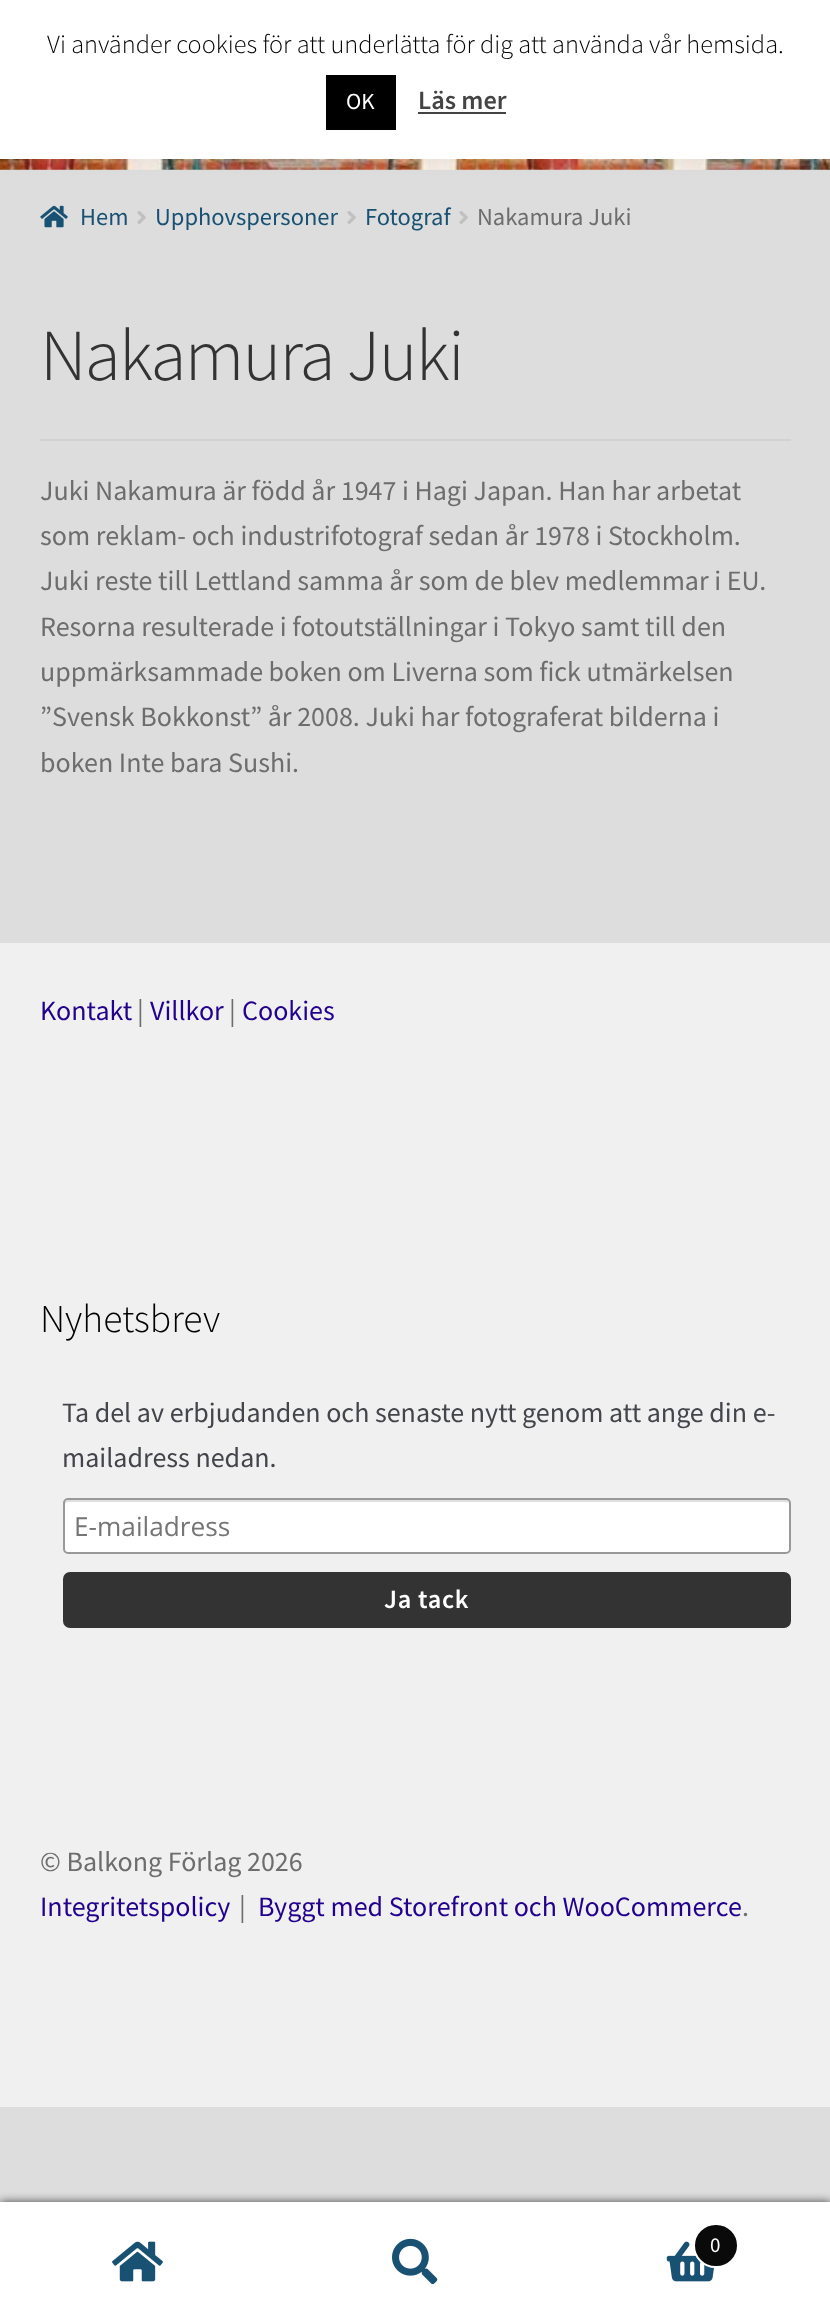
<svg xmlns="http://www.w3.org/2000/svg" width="830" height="2321">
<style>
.a{font:300 26.25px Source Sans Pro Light;fill:#000}
.b{font:23px Source Sans Pro;fill:#fff}
.c{font:600 26.25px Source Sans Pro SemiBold;fill:#444}
.d{font:24.5px Source Sans Pro;fill:#195173}
.e{font:24.5px Source Sans Pro;fill:#6d6d6d}
.f{font:300 73.25px Source Sans Pro Light;letter-spacing:-1.75px;fill:#333}
.g{font:28px Source Sans Pro;fill:#6d6d6d}
.h{font:28px Source Sans Pro;fill:#23008e}
.i{font:300 39.5px Source Sans Pro Light;fill:#000}
.j{font:28px Source Sans Pro;fill:#43454b}
.k{font:26.25px Open Sans;fill:#757575}
.l{font:600 26.25px Source Sans Pro SemiBold;letter-spacing:0.75px;fill:#fff}
.m{font:21px Source Sans Pro;fill:#fff}
</style>
<rect width="100%" height="100%" fill="#ddd"/>
<image href="1.png" x="0" y="159" width="830" height="11"/>
<path fill="#acabab4d" filter="blur(9px)" d="M0 -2h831v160H0z"/>
<path fill="#fff" d="M0 0h830v159H0z"/>
<path fill="#000" d="M326 75h70v55H326z"/>
<path fill="#444" d="M418 112h88v2H418z"/>
<image href="2.png" x="40" y="205" width="28" height="23"/>
<image href="3.png" x="137" y="211" width="9" height="13"/>
<image href="3.png" x="347" y="211" width="9" height="13"/>
<image href="3.png" x="459" y="211" width="9" height="13"/>
<path fill="#d2d2d2" d="M40 439h751v2H40z"/>
<path fill="#f0f0f0" d="M0 943h830v1164H0z"/>
<rect fill="#fff" x="63" y="1498" width="728" height="56" rx="5"/>
<path fill="#dfdfdf" d="M68 1502h718c2 0 3 1 3 3c0-3-1-5-4-5h-716l-3 1l-1 1v3c0-2 1-3 3-3z"/>
<rect fill="none" stroke="#999" stroke-width="2" x="64" y="1499" width="726" height="54" rx="4"/>
<rect fill="#333" x="63" y="1572" width="728" height="56" rx="7"/>
<path fill="#000000b3" filter="blur(5px)" d="M0 2202h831v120H0z"/>
<path fill="#fff" d="M0 2202h830v1H0z"/>
<path fill="#fff" d="M0 2203h830v118H0z"/>
<image href="4.png" x="112" y="2241" width="51" height="41"/>
<image href="5.png" x="392" y="2238" width="46" height="47"/>
<image href="6.png" x="666" y="2241" width="49" height="41"/>
<rect fill="#0a0a0a" stroke="#fff" stroke-width="2" x="694" y="2224" width="44" height="43" rx="21.5"/>
<text class="a" x="47" y="53">Vi använder cookies för att underlätta för dig att använda vår hemsida.</text>
<text class="b" x="346" y="109">OK</text>
<text class="c" x="418" y="109">Läs mer</text>
<text class="d" x="80" y="225">Hem</text>
<text class="d" x="155" y="225">Upphovspersoner</text>
<text class="d" x="365" y="225">Fotograf</text>
<text class="e" x="477" y="225">Nakamura Juki</text>
<text class="f" x="40" y="380">Nakamura Juki</text>
<text class="g" x="40" y="500">Juki Nakamura är född år 1947 i Hagi Japan. Han har arbetat</text>
<text class="g" x="40" y="545">som reklam- och industrifotograf sedan år 1978 i Stockholm.</text>
<text class="g" x="40" y="590">Juki reste till Lettland samma år som de blev medlemmar i EU.</text>
<text class="g" x="40" y="636">Resorna resulterade i fotoutställningar i Tokyo samt till den</text>
<text class="g" x="40" y="681">uppmärksammade boken om Liverna som fick utmärkelsen</text>
<text class="g" x="40" y="726">”Svensk Bokkonst” år 2008. Juki har fotograferat bilderna i</text>
<text class="g" x="40" y="772">boken Inte bara Sushi.</text>
<text class="h" x="40" y="1020">Kontakt</text>
<text class="g" x="137" y="1020">|</text>
<text class="h" x="150" y="1020">Villkor</text>
<text class="g" x="229" y="1020">|</text>
<text class="h" x="242" y="1020">Cookies</text>
<text class="i" x="40" y="1332">Nyhetsbrev</text>
<text class="j" x="62" y="1422">Ta del av erbjudanden och senaste nytt genom att ange din e-</text>
<text class="j" x="62" y="1467">mailadress nedan.</text>
<text class="k" x="74" y="1536">E-mailadress</text>
<text class="l" x="384" y="1608">Ja tack</text>
<text class="g" x="40" y="1871">© Balkong Förlag 2026</text>
<text class="h" x="40" y="1916">Integritetspolicy</text>
<text class="g" x="239" y="1916">|</text>
<text class="h" x="258" y="1916">Byggt med Storefront och WooCommerce</text>
<text class="g" x="742" y="1916">.</text>
<text class="m" x="710" y="2252">0</text>
</svg>
